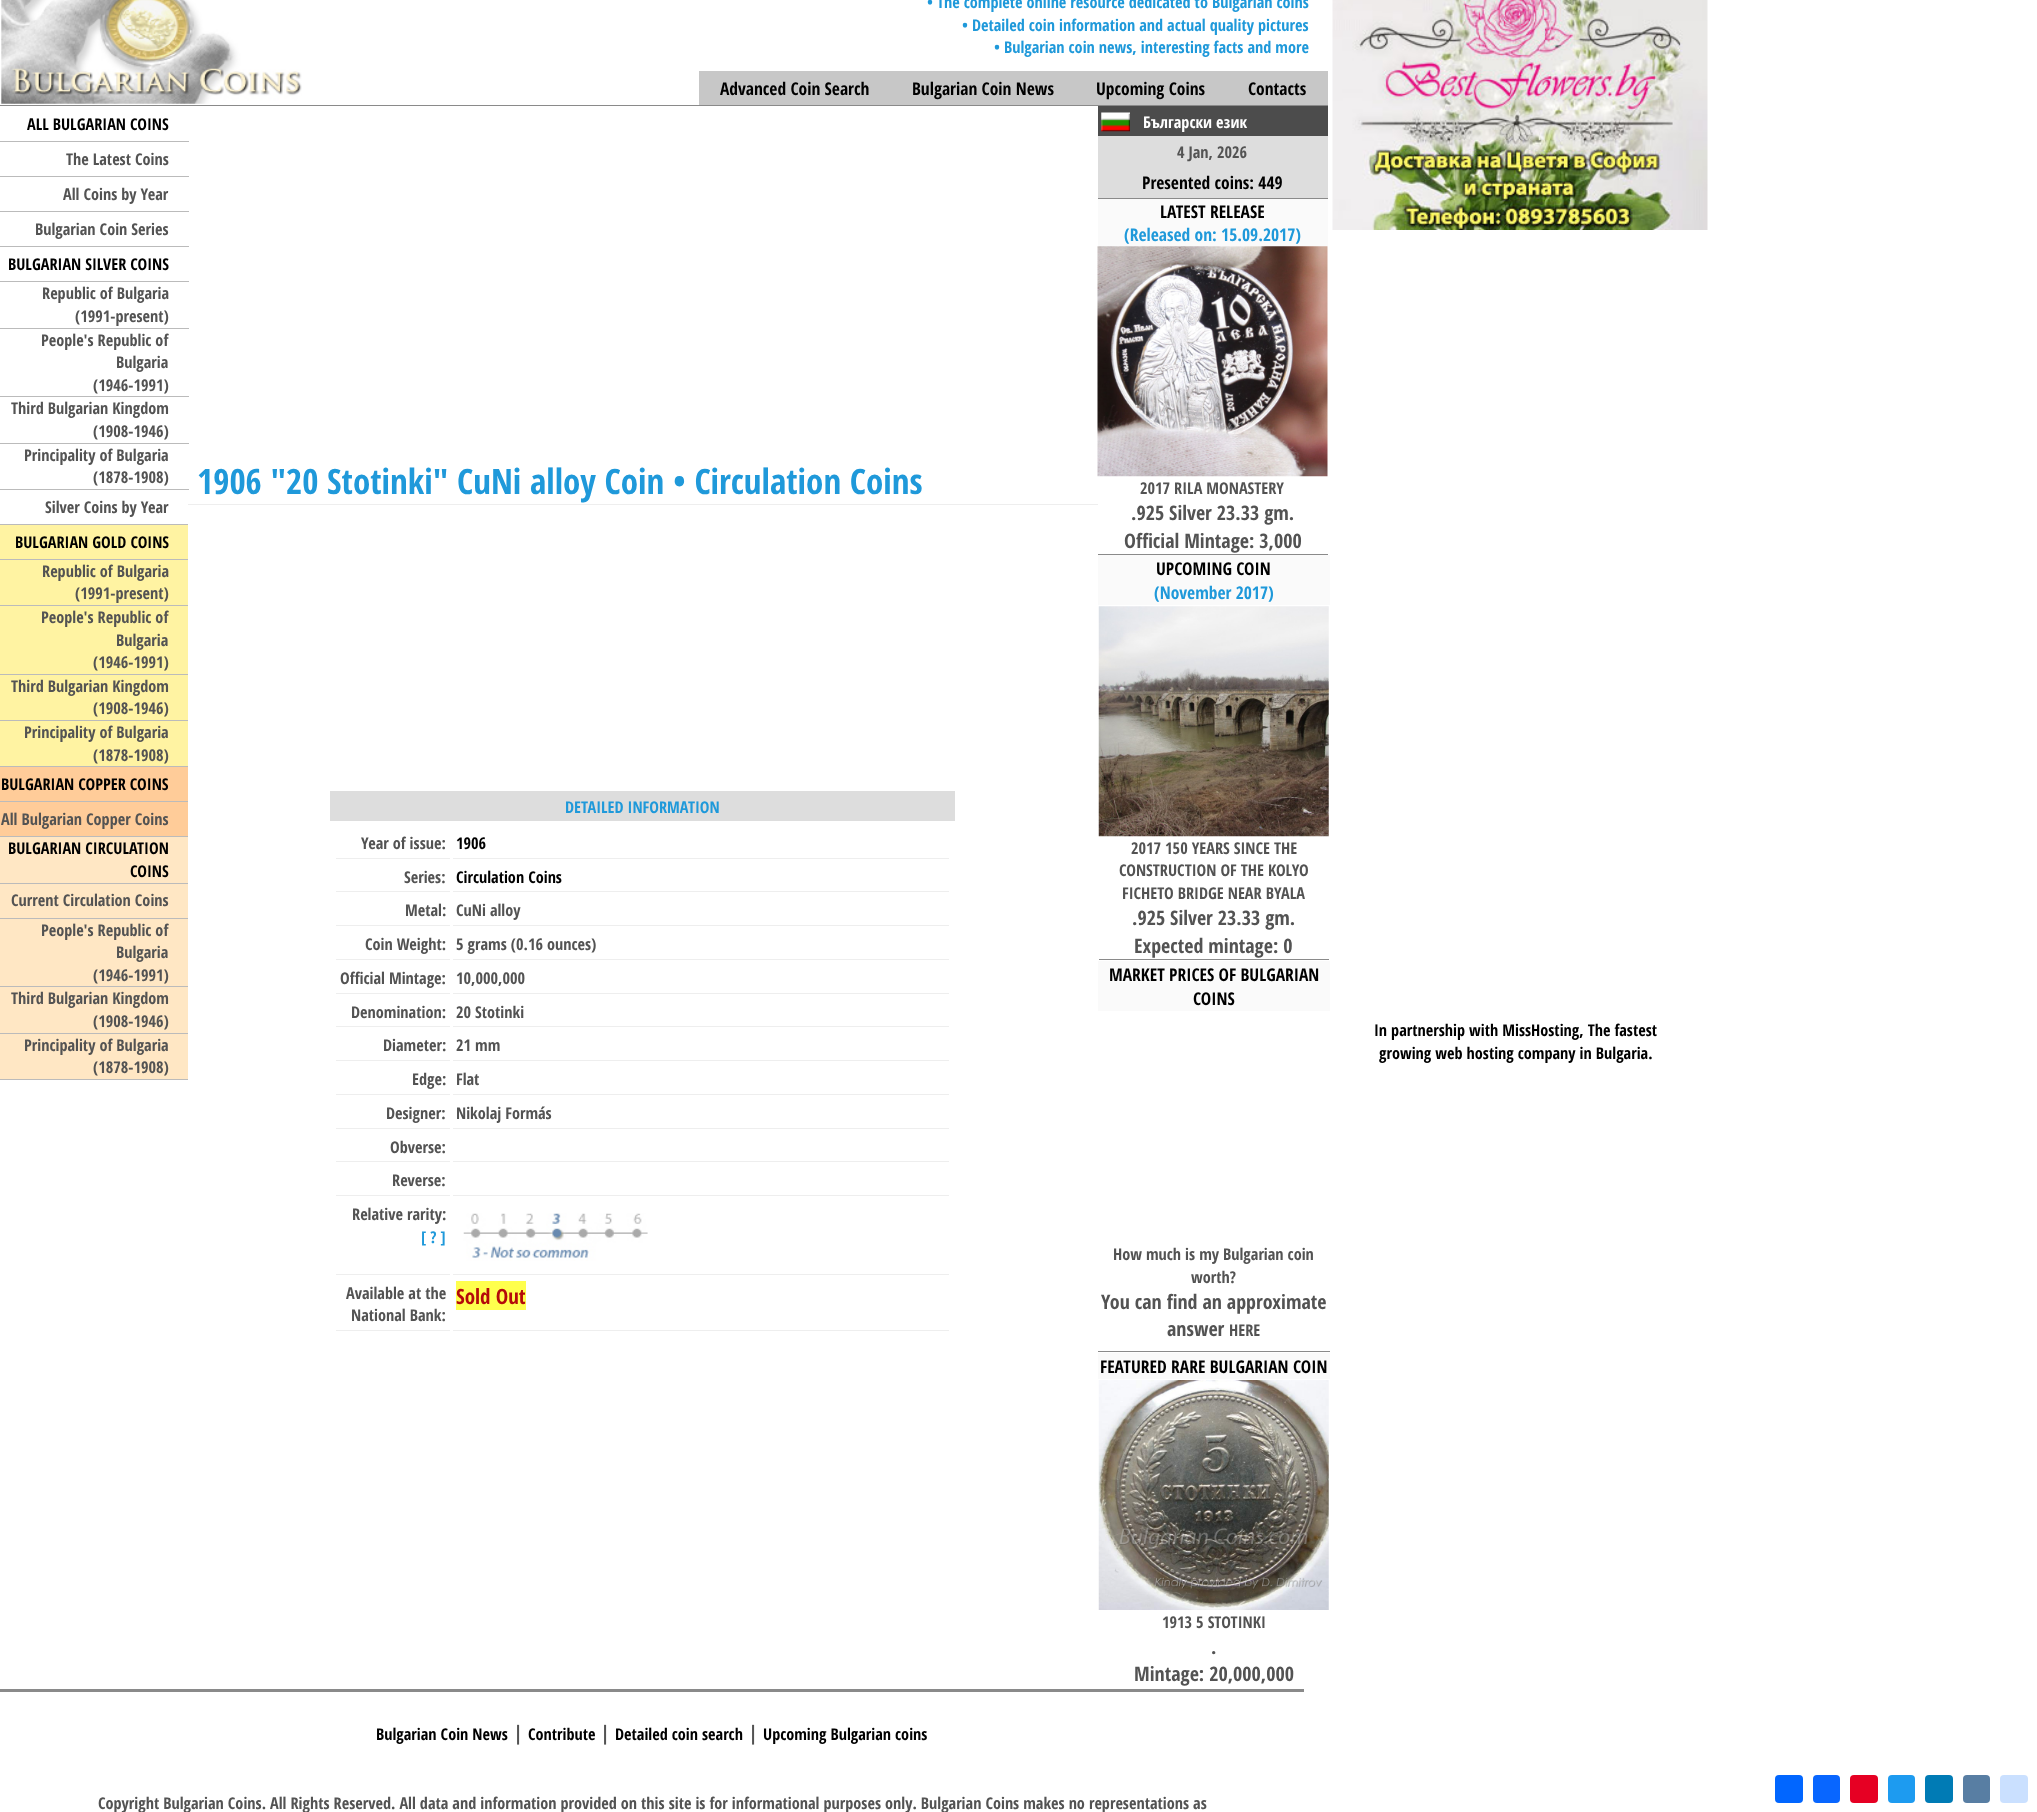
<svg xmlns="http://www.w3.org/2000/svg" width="2037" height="1812">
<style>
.a{font:bold 16.25px Open Sans Condensed;fill:#1f99da}
.b{font:bold 17.5px Open Sans Condensed;fill:#000}
.c{font:bold 16.25px Open Sans Condensed;fill:#000}
.d{font:bold 16.25px Open Sans Condensed;fill:#535353}
.e{font:bold 35px Open Sans Condensed;fill:#1f99da}
.f{font:bold 21px Open Sans Condensed;fill:#b40a0a}
.g{font:bold 16.25px Open Sans Condensed;fill:#fff}
.h{font:bold 17.5px Open Sans Condensed;fill:#1f99da}
.i{font:bold 20px Open Sans Condensed;fill:#535353}
</style>
<rect width="100%" height="100%" fill="#fff"/>
<image href="1.png" x="1" y="0" width="301" height="104"/>
<path fill="#c7c7c7" d="M699 71h629v34H699z"/>
<path fill="#8a8a8a" d="M0 105h1328v1H0z"/>
<path fill="#bbb" d="M0 141h189v1H0z"/>
<path fill="#bbb" d="M0 176h189v1H0z"/>
<path fill="#bbb" d="M0 211h189v1H0z"/>
<path fill="#bbb" d="M0 246h189v1H0z"/>
<path fill="#bbb" d="M0 281h189v1H0z"/>
<path fill="#bbb" d="M0 328h189v1H0z"/>
<path fill="#bbb" d="M0 396h189v1H0z"/>
<path fill="#bbb" d="M0 443h189v1H0z"/>
<path fill="#bbb" d="M0 489h189v1H0z"/>
<path fill="#bbb" d="M0 524h189v1H0z"/>
<path fill="#bbb" d="M0 559h189v1H0z"/>
<path fill="#fff3a2" d="M0 525h188v34H0z"/>
<path fill="#bbb" d="M0 605h189v1H0z"/>
<path fill="#fff3a2" d="M0 560h188v45H0z"/>
<path fill="#bbb" d="M0 674h189v1H0z"/>
<path fill="#fff3a2" d="M0 606h188v68H0z"/>
<path fill="#bbb" d="M0 720h189v1H0z"/>
<path fill="#fff3a2" d="M0 675h188v45H0z"/>
<path fill="#bbb" d="M0 766h189v1H0z"/>
<path fill="#fff3a2" d="M0 721h188v45H0z"/>
<path fill="#bbb" d="M0 801h189v1H0z"/>
<path fill="#fc9" d="M0 767h188v34H0z"/>
<path fill="#bbb" d="M0 836h189v1H0z"/>
<path fill="#fc9" d="M0 802h188v34H0z"/>
<path fill="#bbb" d="M0 883h189v1H0z"/>
<path fill="#ffe7c4" d="M0 837h188v46H0z"/>
<path fill="#bbb" d="M0 918h189v1H0z"/>
<path fill="#ffe7c4" d="M0 884h188v34H0z"/>
<path fill="#bbb" d="M0 986h189v1H0z"/>
<path fill="#ffe7c4" d="M0 919h188v67H0z"/>
<path fill="#bbb" d="M0 1033h189v1H0z"/>
<path fill="#ffe7c4" d="M0 987h188v46H0z"/>
<path fill="#bbb" d="M0 1079h189v1H0z"/>
<path fill="#ffe7c4" d="M0 1034h188v45H0z"/>
<path fill="#eee" d="M188 504h911v1H188z"/>
<path fill="#fff" d="M188 524h1v556H188z"/>
<path fill="#ddd" d="M330 791h625v30H330z"/>
<path fill="#eee" d="M336 858h114v1H336z"/>
<path fill="#eee" d="M453 858h496v1H453z"/>
<path fill="#eee" d="M336 891h114v1H336z"/>
<path fill="#eee" d="M453 891h496v1H453z"/>
<path fill="#eee" d="M336 925h114v1H336z"/>
<path fill="#eee" d="M453 925h496v1H453z"/>
<path fill="#eee" d="M336 959h114v1H336z"/>
<path fill="#eee" d="M453 959h496v1H453z"/>
<path fill="#eee" d="M336 993h114v1H336z"/>
<path fill="#eee" d="M453 993h496v1H453z"/>
<path fill="#eee" d="M336 1026h114v1H336z"/>
<path fill="#eee" d="M453 1026h496v1H453z"/>
<path fill="#eee" d="M336 1060h114v1H336z"/>
<path fill="#eee" d="M453 1060h496v1H453z"/>
<path fill="#eee" d="M336 1094h114v1H336z"/>
<path fill="#eee" d="M453 1094h496v1H453z"/>
<path fill="#eee" d="M336 1128h114v1H336z"/>
<path fill="#eee" d="M453 1128h496v1H453z"/>
<path fill="#eee" d="M336 1161h114v1H336z"/>
<path fill="#eee" d="M453 1161h496v1H453z"/>
<path fill="#eee" d="M336 1195h114v1H336z"/>
<path fill="#eee" d="M453 1195h496v1H453z"/>
<path fill="#eee" d="M336 1274h114v1H336z"/>
<path fill="#eee" d="M453 1274h496v1H453z"/>
<image href="2.png" x="463" y="1213" width="185" height="48"/>
<path fill="#eee" d="M336 1330h114v1H336z"/>
<path fill="#eee" d="M453 1330h496v1H453z"/>
<path fill="#ffff4d" d="M456 1281h70v29H456z"/>
<path fill="#fff" d="M1098 504h1v1H1098z"/>
<path fill="#ddd" d="M1098 136h230v62H1098z"/>
<path fill="#4c4c4c" d="M1098 106h230v30H1098z"/>
<image href="3.png" x="1101" y="112" width="29" height="20"/>
<path fill="#8a8a8a" d="M1098 198h230v1H1098z"/>
<path fill="#fafafa" d="M1098 199h230v47H1098z"/>
<image href="4.png" x="1097" y="246" width="231" height="231"/>
<path fill="#8a8a8a" d="M1098 554h230v1H1098z"/>
<path fill="#fafafa" d="M1098 555h232v50H1098z"/>
<image href="5.png" x="1098" y="606" width="231" height="231"/>
<path fill="#8a8a8a" d="M1099 959h230v1H1099z"/>
<path fill="#fafafa" d="M1098 961h232v50H1098z"/>
<path fill="#8a8a8a" d="M1098 1351h232v1H1098z"/>
<path fill="#fafafa" d="M1098 1353h232v26H1098z"/>
<image href="6.png" x="1098" y="1380" width="231" height="230"/>
<path fill="#8a8a8a" d="M0 1689h1304v3H0z"/>
<image href="7.png" x="1332" y="0" width="376" height="230"/>
<rect fill="#0166ff" x="1775" y="1775" width="28" height="28" rx="4"/>
<rect fill="#0866ff" x="1813" y="1775" width="27" height="28" rx="4"/>
<rect fill="#e60023" x="1850" y="1775" width="28" height="28" rx="4"/>
<rect fill="#1d9bf0" x="1888" y="1775" width="27" height="28" rx="4"/>
<rect fill="#007bb5" x="1925" y="1775" width="28" height="28" rx="4"/>
<rect fill="#587ea3" x="1963" y="1775" width="27" height="28" rx="4"/>
<rect fill="#cae0ff" x="2000" y="1775" width="28" height="28" rx="4"/>
<text class="a" x="927" y="8">• The complete online resource dedicated to Bulgarian coins</text>
<text class="a" x="962" y="31">• Detailed coin information and actual quality pictures</text>
<text class="a" x="994" y="53">• Bulgarian coin news, interesting facts and more</text>
<text class="b" x="720" y="95">Advanced Coin Search</text>
<text class="b" x="912" y="95">Bulgarian Coin News</text>
<text class="b" x="1096" y="95">Upcoming Coins</text>
<text class="b" x="1248" y="95">Contacts</text>
<text class="c" x="27" y="130">ALL BULGARIAN COINS</text>
<text class="d" x="66" y="165">The Latest Coins</text>
<text class="d" x="63" y="200">All Coins by Year</text>
<text class="d" x="35" y="235">Bulgarian Coin Series</text>
<text class="c" x="8" y="270">BULGARIAN SILVER COINS</text>
<text class="d" x="42" y="299">Republic of Bulgaria</text>
<text class="d" x="75" y="322">(1991-present)</text>
<text class="d" x="41" y="346">People's Republic of</text>
<text class="d" x="116" y="368">Bulgaria</text>
<text class="d" x="93" y="391">(1946-1991)</text>
<text class="d" x="11" y="414">Third Bulgarian Kingdom</text>
<text class="d" x="93" y="437">(1908-1946)</text>
<text class="d" x="24" y="461">Principality of Bulgaria</text>
<text class="d" x="93" y="483">(1878-1908)</text>
<text class="d" x="45" y="513">Silver Coins by Year</text>
<text class="c" x="15" y="548">BULGARIAN GOLD COINS</text>
<text class="d" x="42" y="577">Republic of Bulgaria</text>
<text class="d" x="75" y="599">(1991-present)</text>
<text class="d" x="41" y="623">People's Republic of</text>
<text class="d" x="116" y="646">Bulgaria</text>
<text class="d" x="93" y="668">(1946-1991)</text>
<text class="d" x="11" y="692">Third Bulgarian Kingdom</text>
<text class="d" x="93" y="714">(1908-1946)</text>
<text class="d" x="24" y="738">Principality of Bulgaria</text>
<text class="d" x="93" y="761">(1878-1908)</text>
<text class="c" x="1" y="790">BULGARIAN COPPER COINS</text>
<text class="d" x="1" y="825">All Bulgarian Copper Coins</text>
<text class="c" x="8" y="854">BULGARIAN CIRCULATION</text>
<text class="c" x="130" y="877">COINS</text>
<text class="d" x="11" y="906">Current Circulation Coins</text>
<text class="d" x="41" y="936">People's Republic of</text>
<text class="d" x="116" y="958">Bulgaria</text>
<text class="d" x="93" y="981">(1946-1991)</text>
<text class="d" x="11" y="1004">Third Bulgarian Kingdom</text>
<text class="d" x="93" y="1027">(1908-1946)</text>
<text class="d" x="24" y="1051">Principality of Bulgaria</text>
<text class="d" x="93" y="1073">(1878-1908)</text>
<text class="e" x="197" y="494">1906 "20 Stotinki" CuNi alloy Coin • Circulation Coins</text>
<text class="a" x="565" y="813">DETAILED INFORMATION</text>
<text class="d" x="361" y="849">Year of issue:</text>
<text class="c" x="456" y="849">1906</text>
<text class="d" x="404" y="883">Series:</text>
<text class="c" x="456" y="883">Circulation Coins</text>
<text class="d" x="405" y="916">Metal:</text>
<text class="d" x="456" y="916">CuNi alloy</text>
<text class="d" x="365" y="950">Coin Weight:</text>
<text class="d" x="456" y="950">5 grams (0.16 ounces)</text>
<text class="d" x="340" y="984">Official Mintage:</text>
<text class="d" x="456" y="984">10,000,000</text>
<text class="d" x="351" y="1018">Denomination:</text>
<text class="d" x="456" y="1018">20 Stotinki</text>
<text class="d" x="383" y="1051">Diameter:</text>
<text class="d" x="456" y="1051">21 mm</text>
<text class="d" x="412" y="1085">Edge:</text>
<text class="d" x="456" y="1085">Flat</text>
<text class="d" x="386" y="1119">Designer:</text>
<text class="d" x="456" y="1119">Nikolaj Formás</text>
<text class="d" x="390" y="1153">Obverse:</text>
<text class="d" x="392" y="1186">Reverse:</text>
<text class="d" x="352" y="1220">Relative rarity:</text>
<text class="a" x="421" y="1243">[ ? ]</text>
<text class="d" x="346" y="1299">Available at the</text>
<text class="d" x="351" y="1321">National Bank:</text>
<text class="f" x="456" y="1304">Sold Out</text>
<text class="g" x="1143" y="128">Български език</text>
<text class="d" x="1177" y="158">4 Jan, 2026</text>
<text class="b" x="1142" y="189">Presented coins: 449</text>
<text class="b" x="1160" y="218">LATEST RELEASE</text>
<text class="h" x="1124" y="241">(Released on: 15.09.2017)</text>
<text class="d" x="1140" y="494">2017 RILA MONASTERY</text>
<text class="i" x="1131" y="520">.925 Silver 23.33 gm.</text>
<text class="i" x="1124" y="548">Official Mintage: 3,000</text>
<text class="b" x="1156" y="575">UPCOMING COIN</text>
<text class="h" x="1154" y="599">(November 2017)</text>
<text class="d" x="1131" y="854">2017 150 YEARS SINCE THE</text>
<text class="d" x="1119" y="876">CONSTRUCTION OF THE KOLYO</text>
<text class="d" x="1122" y="899">FICHETO BRIDGE NEAR BYALA</text>
<text class="i" x="1132" y="925">.925 Silver 23.33 gm.</text>
<text class="i" x="1134" y="953">Expected mintage: 0</text>
<text class="b" x="1109" y="981">MARKET PRICES OF BULGARIAN</text>
<text class="b" x="1193" y="1005">COINS</text>
<text class="d" x="1113" y="1260">How much is my Bulgarian coin</text>
<text class="d" x="1191" y="1283">worth?</text>
<text class="i" x="1101" y="1309">You can find an approximate</text>
<text class="i" x="1167" y="1336">answer</text>
<text class="d" x="1229" y="1336">HERE</text>
<text class="b" x="1100" y="1373">FEATURED RARE BULGARIAN COIN</text>
<text class="d" x="1162" y="1628">1913 5 STOTINKI</text>
<text class="i" x="1211" y="1654">.</text>
<text class="i" x="1134" y="1681">Mintage: 20,000,000</text>
<text class="c" x="376" y="1740">Bulgarian Coin News</text>
<text class="i" x="513" y="1740">|</text>
<text class="c" x="528" y="1740">Contribute</text>
<text class="i" x="600" y="1740">|</text>
<text class="c" x="615" y="1740">Detailed coin search</text>
<text class="i" x="748" y="1740">|</text>
<text class="c" x="763" y="1740">Upcoming Bulgarian coins</text>
<text class="d" x="98" y="1809">Copyright Bulgarian Coins. All Rights Reserved. All data and information provided on this site is for informational purposes only. Bulgarian Coins makes no representations as</text>
<text class="c" x="1374" y="1036">In partnership with MissHosting, The fastest</text>
<text class="c" x="1379" y="1059">growing web hosting company in Bulgaria.</text>
</svg>
